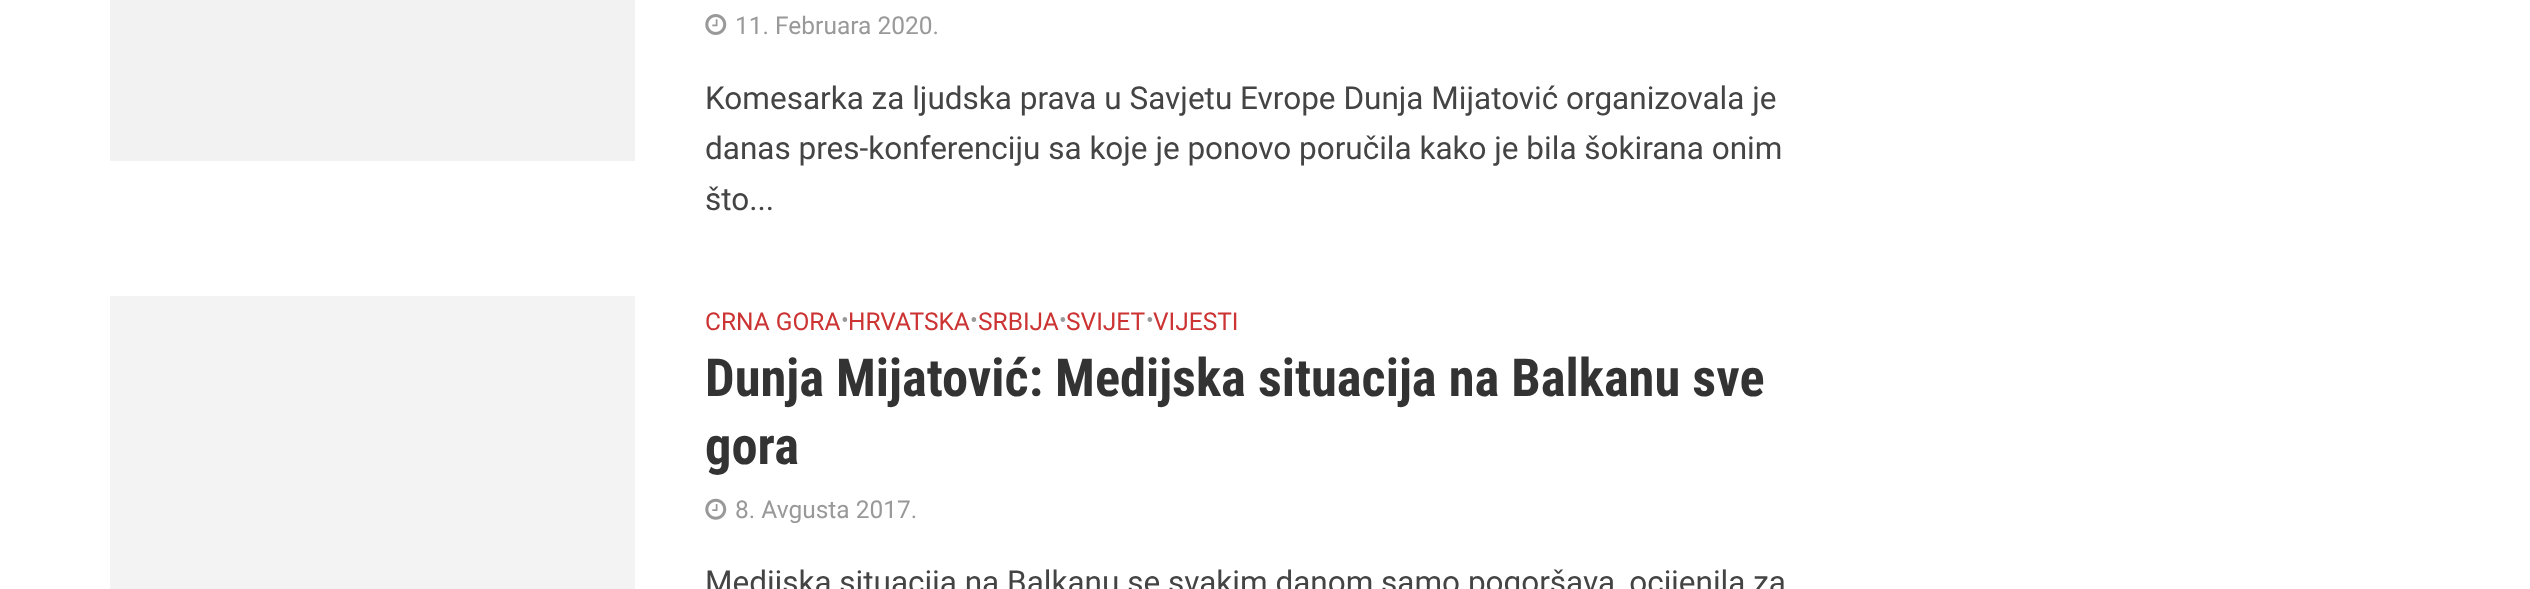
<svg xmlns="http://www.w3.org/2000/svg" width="2530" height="589">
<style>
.a{font:24.5px Roboto;fill:#999}
.b{font:31.5px Roboto;fill:#444}
.c{font:24.5px Roboto;fill:#c33}
.d{font:23px Roboto;fill:#999}
.e{font:bold 52.5px Roboto Condensed;fill:#333}
</style>
<rect width="100%" height="100%" fill="#fff"/>
<path fill="#f2f2f2" d="M110 0h525v161H110z"/>
<image href="1.png" x="705" y="14" width="22" height="21"/>
<path fill="#f3f3f3" d="M110 296h525v293H110z"/>
<image href="2.png" x="705" y="498" width="22" height="22"/>
<text class="a" x="735" y="34">11. Februara 2020.</text>
<text class="b" x="705" y="109">Komesarka za ljudska prava u Savjetu Evrope Dunja Mijatović organizovala je</text>
<text class="b" x="705" y="159">danas pres-konferenciju sa koje je ponovo poručila kako je bila šokirana onim</text>
<text class="b" x="705" y="210">što...</text>
<text class="c" x="705" y="330">CRNA GORA</text>
<text class="d" x="841" y="328">•</text>
<text class="c" x="848" y="330">HRVATSKA</text>
<text class="d" x="970" y="328">•</text>
<text class="c" x="978" y="330">SRBIJA</text>
<text class="d" x="1059" y="328">•</text>
<text class="c" x="1066" y="330">SVIJET</text>
<text class="d" x="1146" y="328">•</text>
<text class="c" x="1153" y="330">VIJESTI</text>
<text class="e" x="705" y="396">Dunja Mijatović: Medijska situacija na Balkanu sve</text>
<text class="e" x="705" y="464">gora</text>
<text class="a" x="735" y="518">8. Avgusta 2017.</text>
<text class="b" x="705" y="593">Medijska situacija na Balkanu se svakim danom samo pogoršava, ocijenila za</text>
</svg>
